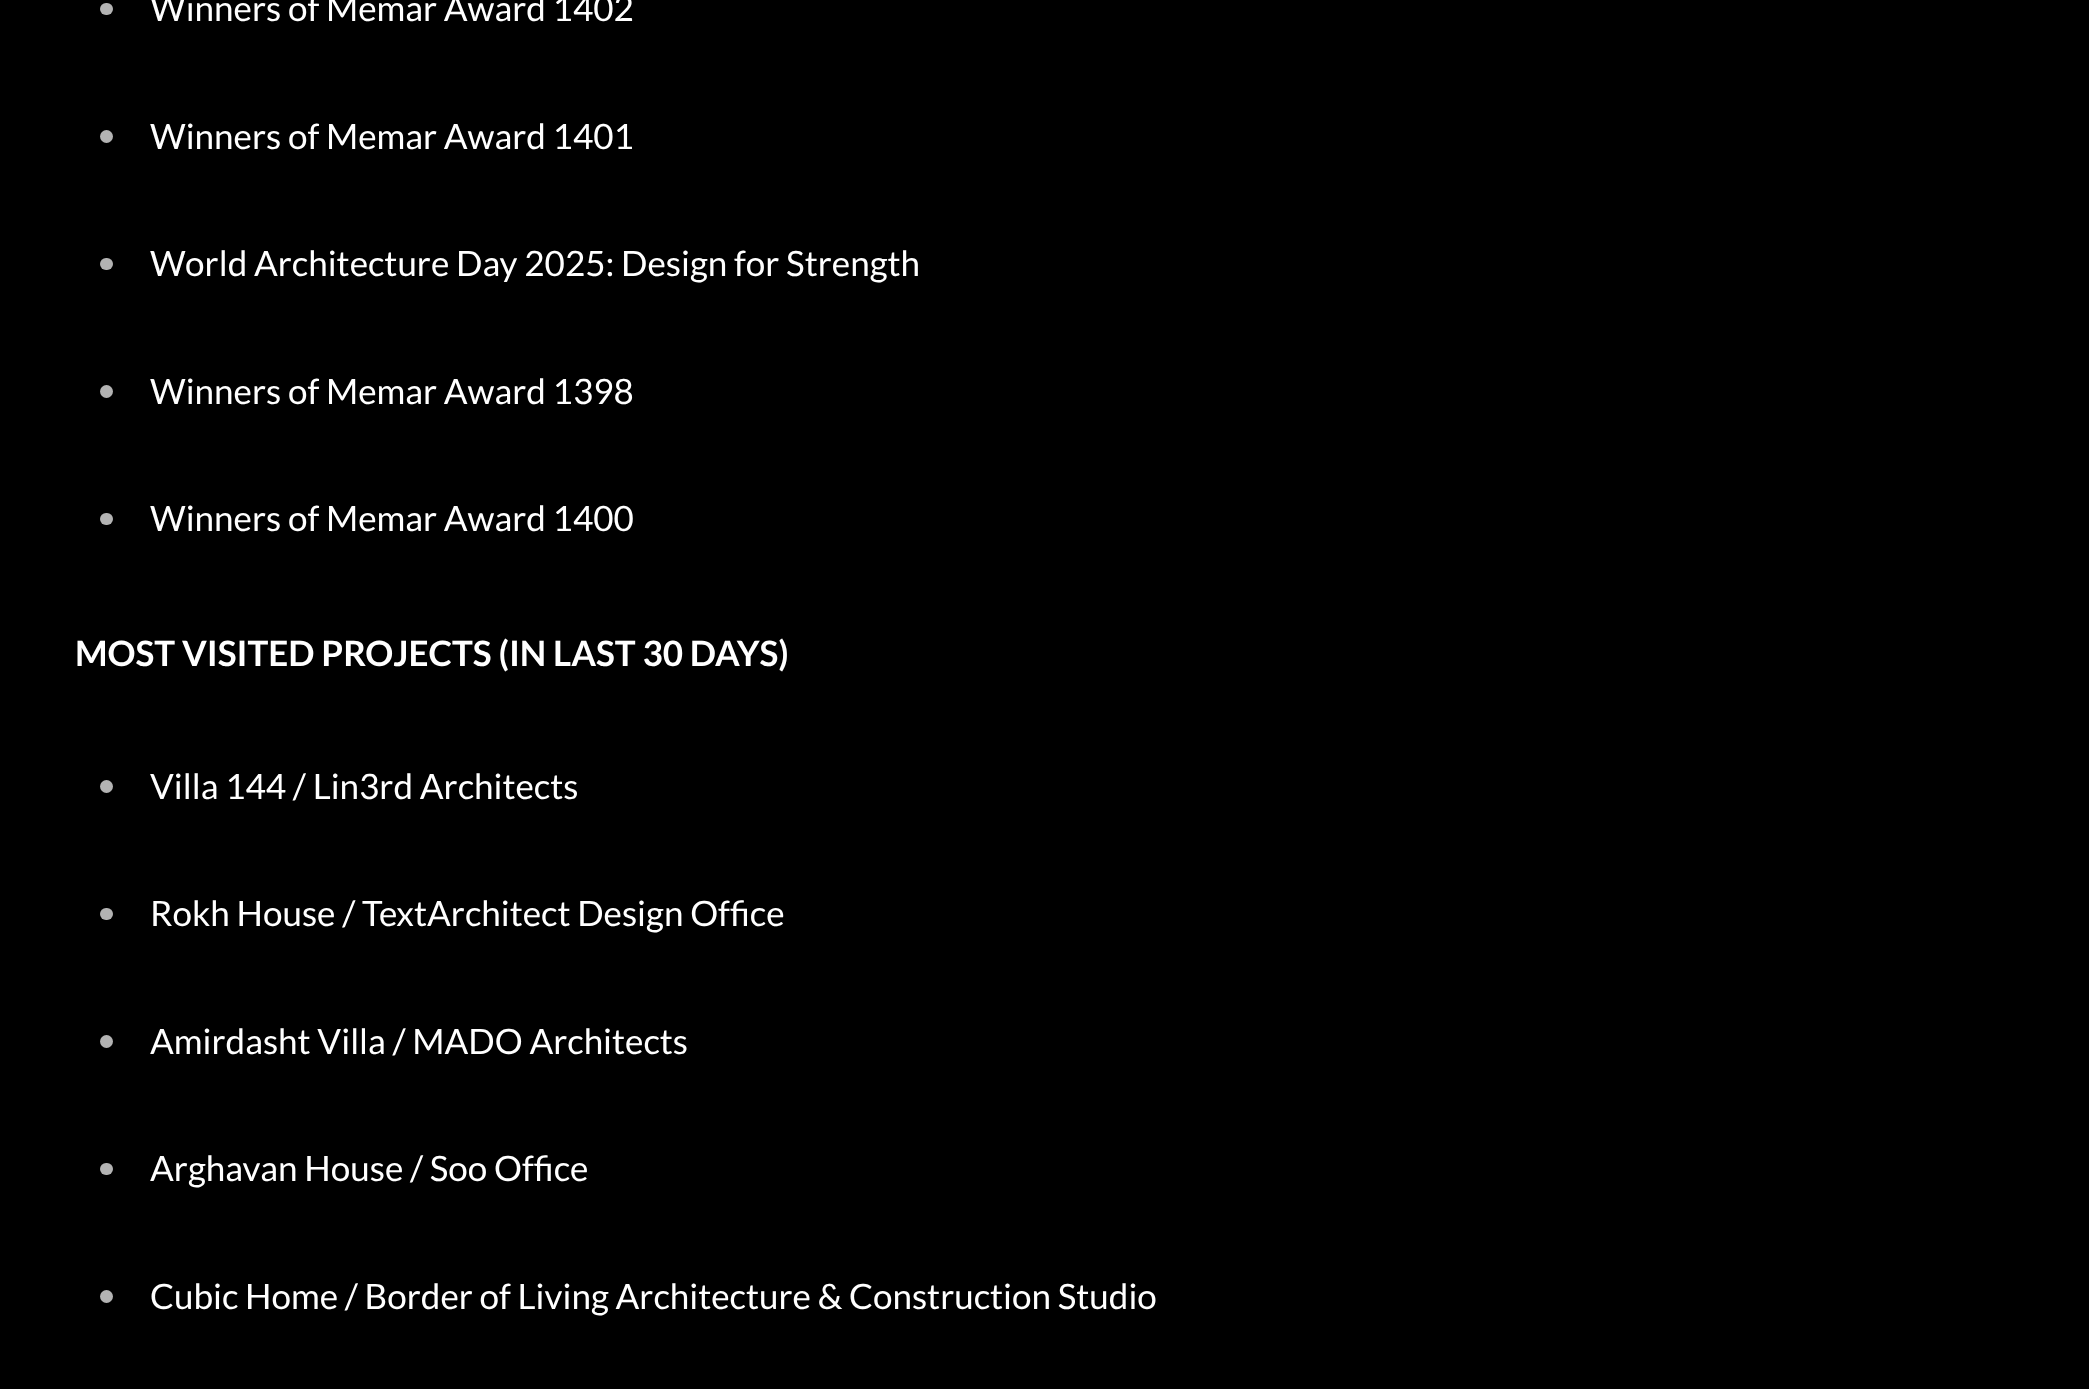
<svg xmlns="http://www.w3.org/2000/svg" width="2089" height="1389">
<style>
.a{font:35px Lato;fill:#fff}
.b{font:bold 35px Lato;fill:#fff}
</style>
<rect width="100%" height="100%" fill="#000"/>
<rect fill="#b3b3b3" x="100" y="3" width="13" height="12" rx="6"/>
<circle fill="#b3b3b3" cx="106.5" cy="136.5" r="6.5"/>
<rect fill="#b3b3b3" x="100" y="258" width="13" height="12" rx="6"/>
<circle fill="#b3b3b3" cx="106.5" cy="391.5" r="6.5"/>
<rect fill="#b3b3b3" x="100" y="513" width="13" height="12" rx="6"/>
<circle fill="#b3b3b3" cx="106.5" cy="786.5" r="6.5"/>
<rect fill="#b3b3b3" x="100" y="908" width="13" height="12" rx="6"/>
<circle fill="#b3b3b3" cx="106.5" cy="1041.5" r="6.5"/>
<rect fill="#b3b3b3" x="100" y="1163" width="13" height="12" rx="6"/>
<circle fill="#b3b3b3" cx="106.5" cy="1296.5" r="6.5"/>
<text class="a" x="150" y="21">Winners of Memar Award 1402</text>
<text class="a" x="150" y="149">Winners of Memar Award 1401</text>
<text class="a" x="150" y="276">World Architecture Day 2025: Design for Strength</text>
<text class="a" x="150" y="404">Winners of Memar Award 1398</text>
<text class="a" x="150" y="531">Winners of Memar Award 1400</text>
<text class="b" x="75" y="666">MOST VISITED PROJECTS (IN LAST 30 DAYS)</text>
<text class="a" x="150" y="799">Villa 144 / Lin3rd Architects</text>
<text class="a" x="150" y="926">Rokh House / TextArchitect Design Office</text>
<text class="a" x="150" y="1054">Amirdasht Villa / MADO Architects</text>
<text class="a" x="150" y="1181">Arghavan House / Soo Office</text>
<text class="a" x="150" y="1309">Cubic Home / Border of Living Architecture &amp; Construction Studio</text>
</svg>
